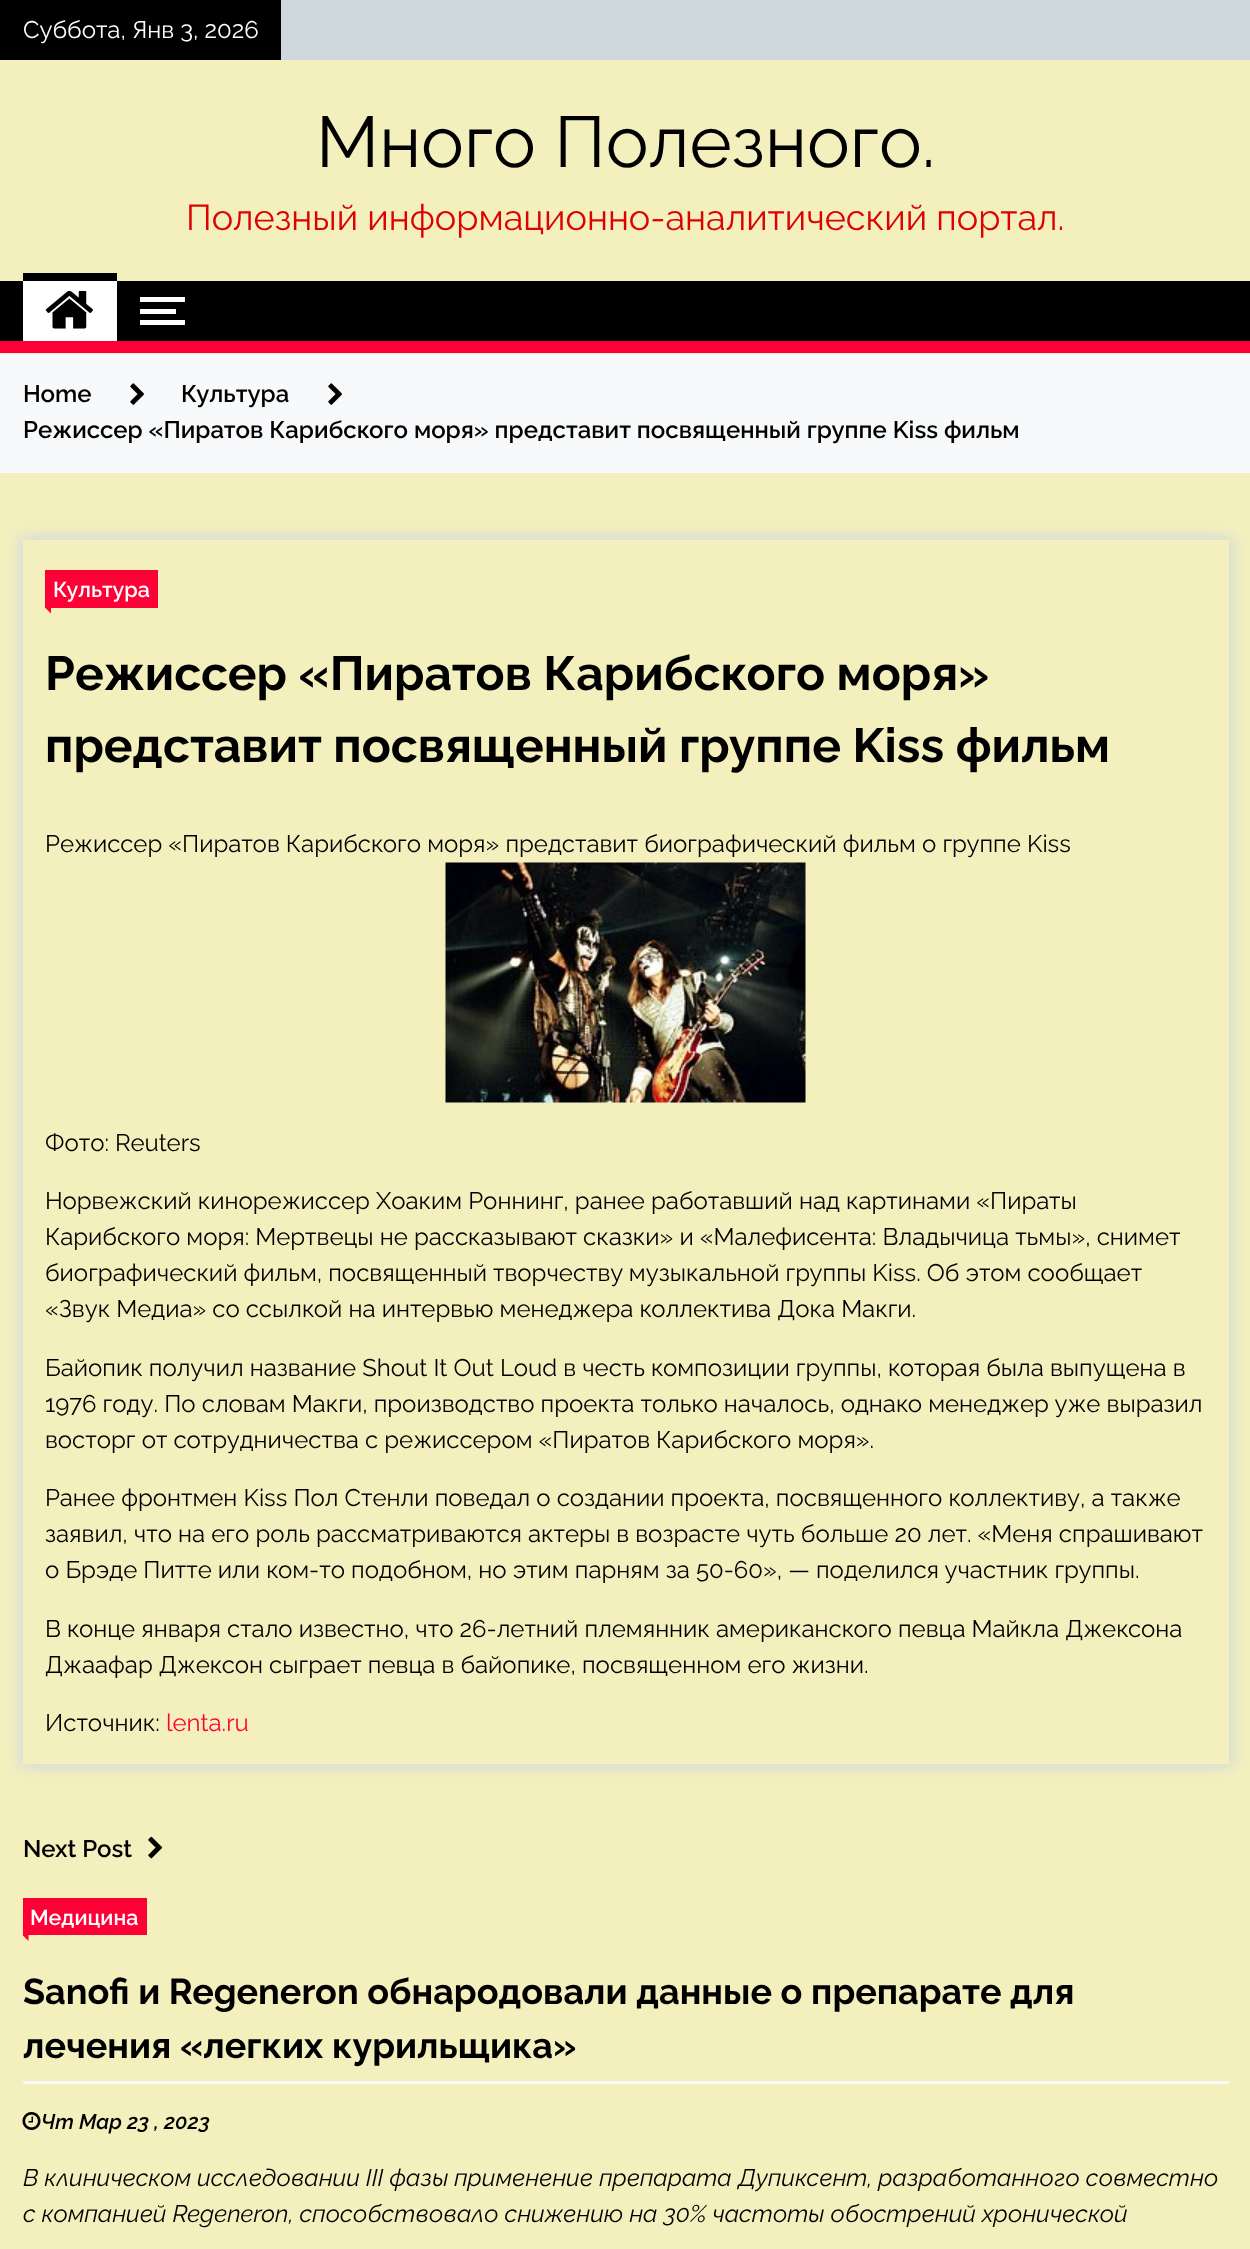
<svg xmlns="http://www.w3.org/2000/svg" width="1250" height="2249">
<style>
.a{font:24px Raleway;fill:#fff}
.b{font:72px Raleway;fill:#000}
.c{font:36px Raleway;fill:#dd0202}
.d{font:600 24px Raleway;fill:#000}
.e{font:600 21.5px Raleway;fill:#fff}
.f{font:bold 48px Raleway;fill:#000}
.g{font:24px Raleway;fill:#000}
.h{font:24px Raleway;fill:#ff0036}
.i{font:bold 36px Raleway;fill:#000}
.j{font:italic 600 21px Raleway;fill:#000}
.k{font:italic 24px Raleway;fill:#000}
</style>
<defs>
<clipPath id="clip1"><path d="M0 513h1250v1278h-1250zm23 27h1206v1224h-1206z" clip-rule="evenodd"/></clipPath>
</defs>
<rect width="100%" height="100%" fill="#f4f0be"/>
<path fill="#cfd8dc" d="M281 0h969v60H281z"/>
<path fill="#000" d="M0 0h281v60H0z"/>
<path fill="#000" d="M0 281h1250v60H0z"/>
<path fill="#fff" d="M23 281h94v60H23z"/>
<path fill="#000" d="M23 273h94v8H23z"/>
<image href="1.png" x="45" y="290" width="48" height="39"/>
<path fill="#fff" d="M140 297h45v5H140z"/>
<path fill="#fff" d="M140 320h45v5H140z"/>
<path fill="#fff" d="M140 309h36v5H140z"/>
<path fill="#ff0036" d="M0 341h1250v12H0z"/>
<path fill="#f8f9fa" d="M0 354h1250v119H0z"/>
<image href="2.png" x="130" y="383" width="14" height="22"/>
<image href="2.png" x="328" y="383" width="14" height="22"/>
<g clip-path="url(#clip1)">
<path fill="#cfd8dc" filter="blur(7.5px)" d="M20 537h1212v1230H20z"/>
</g>
<path fill="#ff0036" d="M45 570h113v38H45z"/>
<path fill="#ff0036" d="M51 607.5v6l-6-6z"/>
<image href="3.png" x="445" y="862" width="361" height="241"/>
<image href="4.png" x="148" y="1836" width="14" height="23"/>
<path fill="#ff0036" d="M23 1898h124v37H23z"/>
<path fill="#ff0036" d="M28.5 1935v6l-6-6z"/>
<path fill="#f8f9fa" d="M23 2081h1206v3H23z"/>
<image href="5.png" x="22" y="2112" width="19" height="18"/>
<text class="a" x="23" y="38">Суббота, Янв 3, 2026</text>
<text class="b" x="316" y="167">Много Полезного.</text>
<text class="c" x="186" y="230">Полезный информационно-аналитический портал.</text>
<text class="d" x="23" y="402">Home</text>
<text class="d" x="181" y="402">Культура</text>
<text class="d" x="23" y="438">Режиссер «Пиратов Карибского моря» представит посвященный группе Kiss фильм</text>
<text class="e" x="53" y="597">Культура</text>
<text class="f" x="45" y="690">Режиссер «Пиратов Карибского моря»</text>
<text class="f" x="45" y="762">представит посвященный группе Kiss фильм</text>
<text class="g" x="45" y="852">Режиссер «Пиратов Карибского моря» представит биографический фильм о группе Kiss</text>
<text class="g" x="45" y="1151">Фото: Reuters</text>
<text class="g" x="45" y="1209">Норвежский кинорежиссер Хоаким Роннинг, ранее работавший над картинами «Пираты</text>
<text class="g" x="45" y="1245">Карибского моря: Мертвецы не рассказывают сказки» и «Малефисента: Владычица тьмы», снимет</text>
<text class="g" x="45" y="1281">биографический фильм, посвященный творчеству музыкальной группы Kiss. Об этом сообщает</text>
<text class="g" x="45" y="1317">«Звук Медиа» со ссылкой на интервью менеджера коллектива Дока Макги.</text>
<text class="g" x="45" y="1376">Байопик получил название Shout It Out Loud в честь композиции группы, которая была выпущена в</text>
<text class="g" x="45" y="1412">1976 году. По словам Макги, производство проекта только началось, однако менеджер уже выразил</text>
<text class="g" x="45" y="1448">восторг от сотрудничества с режиссером «Пиратов Карибского моря».</text>
<text class="g" x="45" y="1506">Ранее фронтмен Kiss Пол Стенли поведал о создании проекта, посвященного коллективу, а также</text>
<text class="g" x="45" y="1542">заявил, что на его роль рассматриваются актеры в возрасте чуть больше 20 лет. «Меня спрашивают</text>
<text class="g" x="45" y="1578">о Брэде Питте или ком-то подобном, но этим парням за 50-60», — поделился участник группы.</text>
<text class="g" x="45" y="1637">В конце января стало известно, что 26-летний племянник американского певца Майкла Джексона</text>
<text class="g" x="45" y="1673">Джаафар Джексон сыграет певца в байопике, посвященном его жизни.</text>
<text class="g" x="45" y="1731">Источник:</text>
<text class="h" x="166" y="1731">lenta.ru</text>
<text class="d" x="23" y="1857">Next Post</text>
<text class="e" x="30" y="1925">Медицина</text>
<text class="i" x="23" y="2004">Sanofi и Regeneron обнародовали данные о препарате для</text>
<text class="i" x="23" y="2058">лечения «легких курильщика»</text>
<text class="j" x="41" y="2129">Чт Мар 23 , 2023</text>
<text class="k" x="23" y="2186">В клиническом исследовании III фазы применение препарата Дупиксент, разработанного совместно</text>
<text class="k" x="23" y="2222">с компанией Regeneron, способствовало снижению на 30% частоты обострений хронической</text>
</svg>
